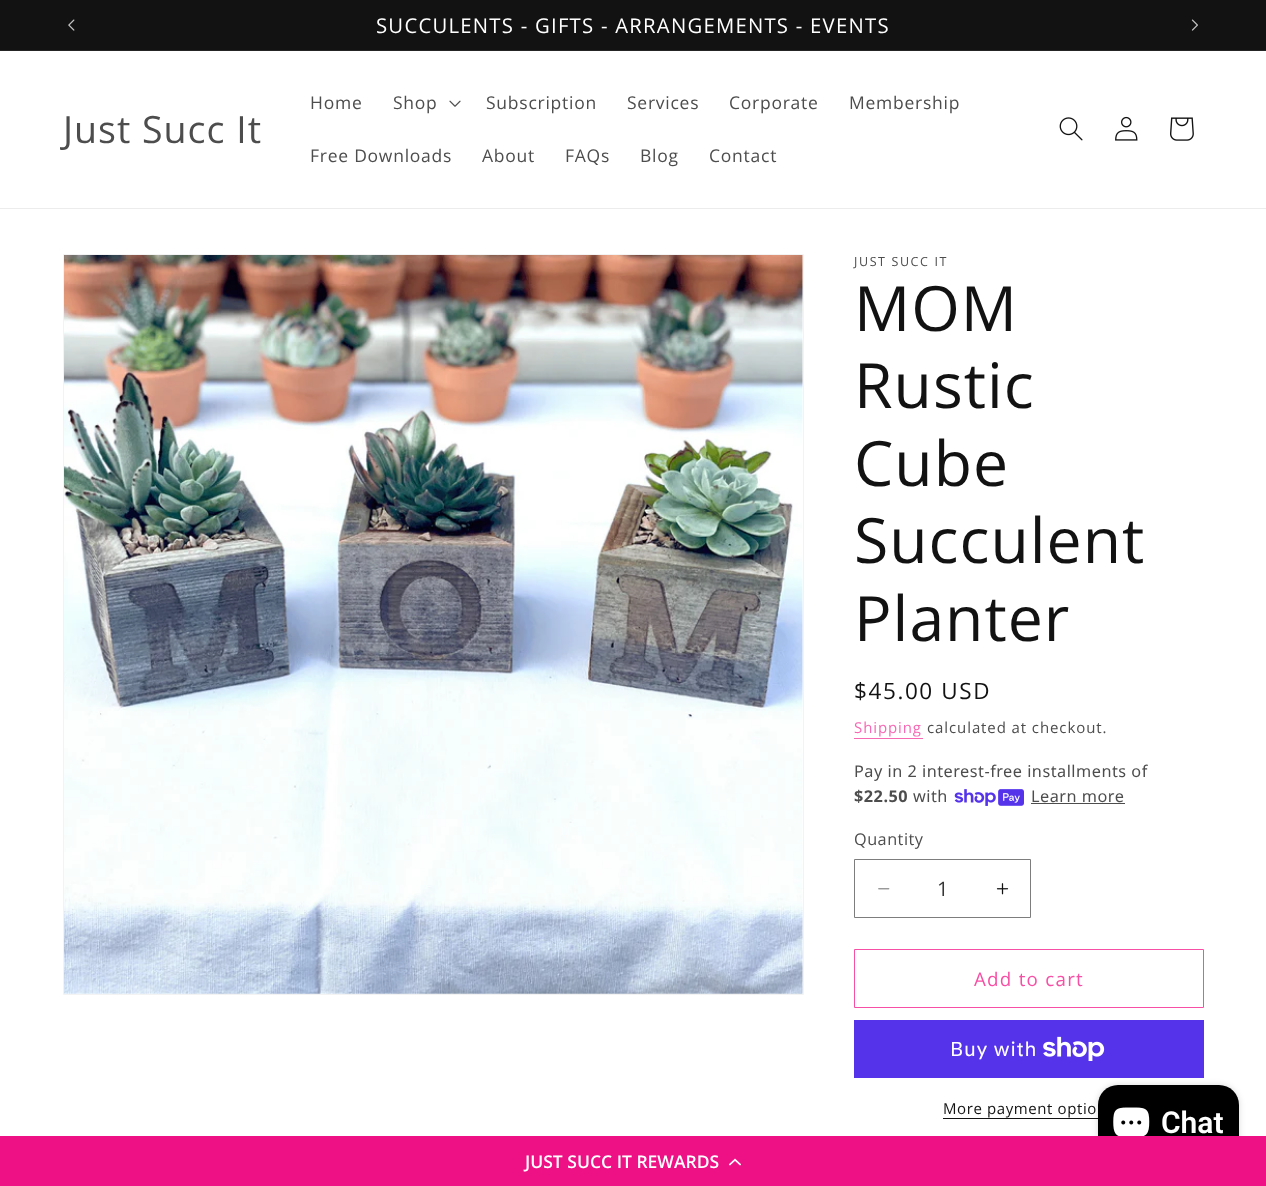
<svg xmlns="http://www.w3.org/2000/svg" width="1266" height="1186">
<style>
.a{font:20.3px Open Sans;letter-spacing:1.25px;fill:#fff}
.b{font:37.5px Open Sans;letter-spacing:1px;fill:#4d4d4d}
.c{font:17.5px Open Sans;letter-spacing:0.75px;fill:#4d4d4d}
.d{font:12.5px Open Sans;letter-spacing:1.6px;fill:#4d4d4d}
.e{font:62.5px Open Sans;letter-spacing:1px;fill:#121212}
.f{font:22.5px Open Sans;letter-spacing:1.6px;fill:#121212}
.g{font:15px Open Sans;letter-spacing:0.9px;fill:#f769b3}
.h{font:15px Open Sans;letter-spacing:0.9px;fill:#4d4d4d}
.i{font:16.25px Noto Sans;letter-spacing:0.5px;fill:#4d4d4d}
.j{font:bold 16.25px Noto Sans;letter-spacing:0.5px;fill:#4d4d4d}
.k{font:16.25px Open Sans;letter-spacing:0.5px;fill:#4d4d4d}
.l{font:20px Open Sans;fill:#363636}
.m{font:18.75px Open Sans;letter-spacing:1.25px;fill:#f64fa5}
.n{font:20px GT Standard;letter-spacing:0.75px;fill:#fff}
.o{font:15px Open Sans;letter-spacing:0.6px;fill:#121212}
.p{font:600 30px Roboto;fill:#fff}
.q{font:600 17.5px Open Sans;fill:#fff}
</style>
<rect width="100%" height="100%" fill="#fff"/>
<path fill="#121212" d="M0 0h1266v50H0z"/>
<path fill="#252525" d="M0 50h1266v1H0z"/>
<image href="1.png" x="68" y="19" width="7" height="12"/>
<image href="2.png" x="1191" y="19" width="7" height="12"/>
<path fill="#ececec" d="M0 208h1266v1H0z"/>
<image href="3.png" x="449" y="100" width="12" height="7"/>
<image href="4.png" x="1059" y="117" width="24" height="24"/>
<image href="5.png" x="1115" y="116" width="23" height="25"/>
<image href="6.png" x="1170" y="117" width="24" height="24"/>
<path fill="none" stroke="#f3f3f3" d="M63.5 254.5h740v740H63.5z"/>
<image href="7.png" x="64" y="255" width="739" height="739"/>
<path fill="#f769b3" d="M854 738h69v1H854z"/>
<image href="8.png" x="954" y="789" width="70" height="17"/>
<path fill="#4d4d4d" d="M1031 803h94v1H1031z"/>
<image href="9.png" x="878" y="888" width="12" height="2"/>
<image href="10.png" x="996" y="883" width="13" height="12"/>
<path fill="none" stroke="#7d7d7d" d="M854.5 859.5h176v58H854.5z"/>
<path fill="none" stroke="#f64fa5" d="M854.5 949.5h349v58H854.5z"/>
<path fill="#5433eb" d="M854 1020h350v58H854z"/>
<image href="11.png" x="1043" y="1036" width="62" height="25"/>
<path fill="#121212" d="M943 1118h155v1H943z"/>
<rect fill="#00000026" filter="blur(3px)" x="1098" y="1085" width="141" height="75" rx="20"/>
<rect fill="#000" x="1098" y="1085" width="141" height="75" rx="20"/>
<image href="12.png" x="1113" y="1107" width="37" height="29"/>
<path fill="#ee1085" d="M0 1136h1266v50H0z"/>
<image href="13.png" x="729" y="1158" width="12" height="8"/>
<text class="a" x="376" y="33">SUCCULENTS - GIFTS - ARRANGEMENTS - EVENTS</text>
<text class="b" x="63" y="143">Just Succ It</text>
<text class="c" x="310" y="109">Home</text>
<text class="c" x="393" y="109">Shop</text>
<text class="c" x="486" y="109">Subscription</text>
<text class="c" x="627" y="109">Services</text>
<text class="c" x="729" y="109">Corporate</text>
<text class="c" x="849" y="109">Membership</text>
<text class="c" x="310" y="162">Free Downloads</text>
<text class="c" x="482" y="162">About</text>
<text class="c" x="565" y="162">FAQs</text>
<text class="c" x="640" y="162">Blog</text>
<text class="c" x="709" y="162">Contact</text>
<text class="d" x="854" y="266">JUST SUCC IT</text>
<text class="e" x="854" y="331">MOM</text>
<text class="e" x="854" y="408">Rustic</text>
<text class="e" x="854" y="486">Cube</text>
<text class="e" x="854" y="563">Succulent</text>
<text class="e" x="854" y="641">Planter</text>
<text class="f" x="854" y="699">$45.00 USD</text>
<text class="g" x="854" y="733">Shipping</text>
<text class="h" x="927" y="733">calculated at checkout.</text>
<text class="i" x="854" y="777">Pay in 2 interest-free installments of</text>
<text class="j" x="854" y="802">$22.50</text>
<text class="i" x="913" y="802">with</text>
<text class="i" x="1031" y="802">Learn more</text>
<text class="k" x="854" y="845">Quantity</text>
<text class="l" x="937" y="896">1</text>
<text class="m" x="974" y="986">Add to cart</text>
<text class="n" x="950" y="1056">Buy with</text>
<text class="o" x="943" y="1114">More payment optio</text>
<text class="p" x="1161" y="1133">Chat</text>
<text class="q" x="525" y="1168">JUST SUCC IT REWARDS</text>
</svg>
